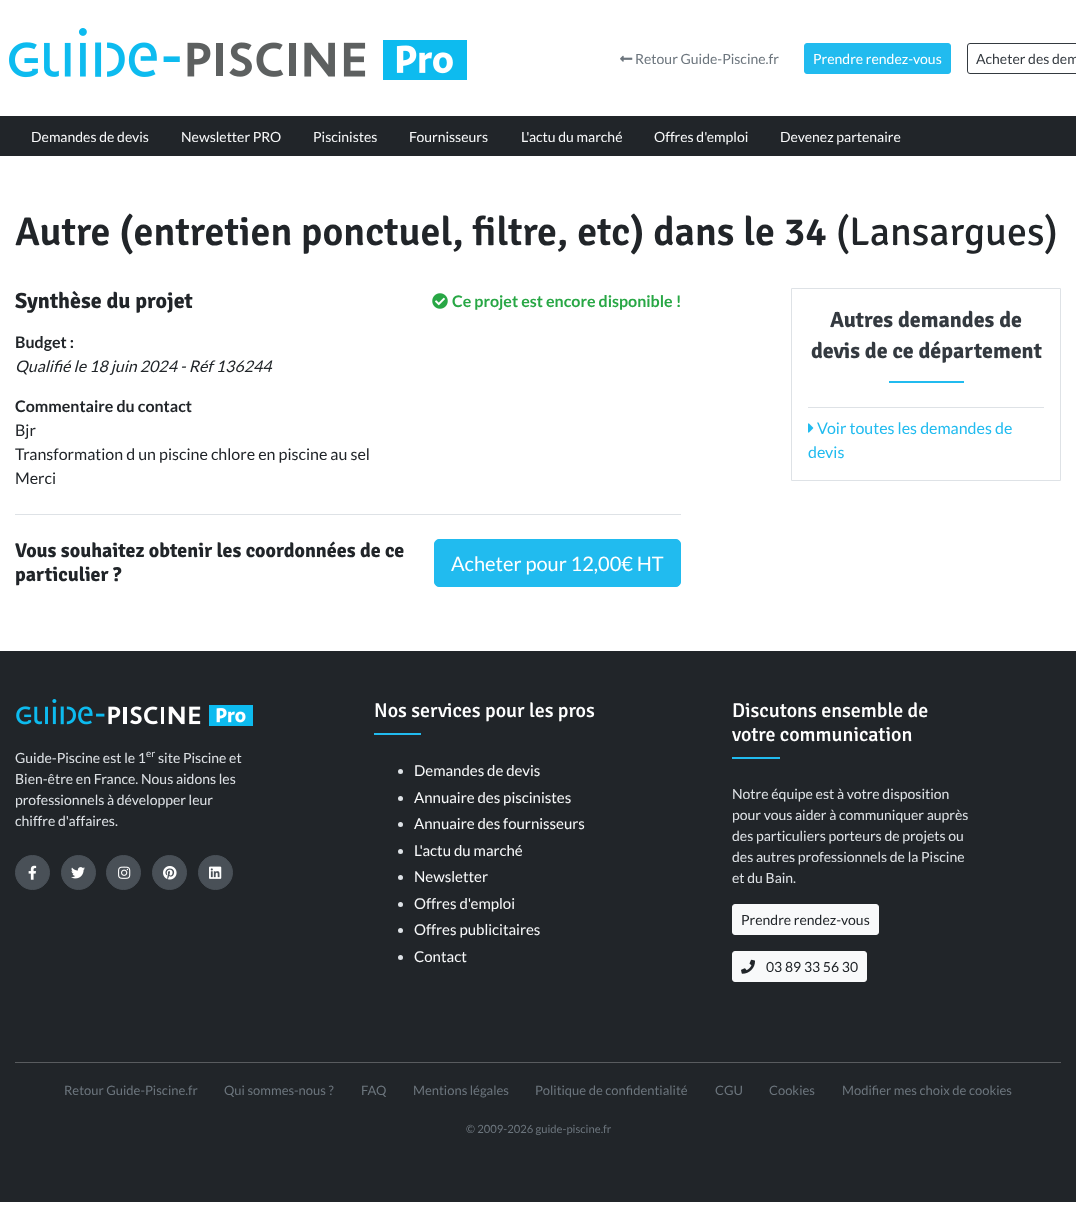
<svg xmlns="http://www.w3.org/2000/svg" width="1076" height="1230">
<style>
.a{font:14px Lato;fill:#6c757d}
.b{font:14px Lato;fill:#fff}
.c{font:14px Lato;fill:#343a40}
.d{font:14px Lato;fill:#f8f9fa}
.e{font:600 40px Signika;fill:#212529}
.f{font:40px Signika;fill:#212529}
.g{font:bold 22px Signika;fill:#212529}
.h{font:bold 16px Lato;fill:#28a745}
.i{font:bold 16px Lato;fill:#212529}
.j{font:italic 16px Lato;fill:#212529}
.k{font:16px Lato;fill:#212529}
.l{font:bold 20px Signika;fill:#212529}
.m{font:20px Lato;fill:#fff}
.n{font:bold 22px Signika;fill:#343a40}
.o{font:16px Lato;fill:#21bbef}
.p{font:14px Lato;fill:#dee2e6}
.q{font:10px Lato;fill:#dee2e6}
.r{font:500 20px Signika;fill:#fff}
.s{font:15px Lato;fill:#f8f9fa}
.t{font:14px Lato;fill:#212529}
.u{font:13px Lato;fill:#6c757d}
.v{font:11.25px Lato;fill:#6c757d}
</style>
<rect width="100%" height="100%" fill="#fff"/>
<image href="1.png" x="9" y="28" width="458" height="52"/>
<image href="2.png" x="620" y="55" width="13" height="7"/>
<rect fill="#21bbef" stroke="#21bbef" x="804.5" y="43.5" width="146" height="30" rx="2.5"/>
<rect fill="none" stroke="#343a40" x="967.5" y="43.5" width="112" height="30" rx="2.5"/>
<path fill="#212529" d="M0 116h1076v40H0z"/>
<image href="3.png" x="432" y="293" width="16" height="16"/>
<path fill="#dee2e6" d="M15 514h666v1H15z"/>
<rect fill="#21bbef" stroke="#21bbef" x="434.5" y="539.5" width="246" height="47" rx="4.5"/>
<path fill="none" stroke="#dee2e6" d="M791.5 288.5h269v192H791.5z"/>
<path fill="#21bbef" d="M889 381h75v2H889z"/>
<path fill="#dee2e6" d="M808 407h236v1H808z"/>
<image href="4.png" x="808" y="423" width="6" height="10"/>
<path fill="#212529" d="M0 651h1076v551H0z"/>
<image href="5.png" x="16" y="699" width="237" height="27"/>
<circle fill="#495057" stroke="#495057" cx="32.5" cy="872.5" r="17"/>
<image href="6.png" x="28" y="865" width="9" height="15"/>
<circle fill="#495057" stroke="#495057" cx="78.5" cy="872.5" r="17"/>
<image href="7.png" x="71" y="867" width="14" height="12"/>
<circle fill="#495057" stroke="#495057" cx="123.5" cy="872.5" r="17"/>
<image href="8.png" x="118" y="866" width="13" height="13"/>
<circle fill="#495057" stroke="#495057" cx="169.5" cy="872.5" r="17"/>
<image href="9.png" x="163" y="866" width="14" height="14"/>
<circle fill="#495057" stroke="#495057" cx="215.5" cy="872.5" r="17"/>
<image href="10.png" x="209" y="866" width="13" height="13"/>
<path fill="#21bbef" d="M374 733h47v2H374z"/>
<circle fill="#dee2e6" cx="400.5" cy="771.5" r="2.5"/>
<circle fill="#dee2e6" cx="400.5" cy="798.5" r="2.5"/>
<circle fill="#dee2e6" cx="400.5" cy="824.5" r="2.5"/>
<circle fill="#dee2e6" cx="400.5" cy="851.5" r="2.5"/>
<circle fill="#dee2e6" cx="400.5" cy="877.5" r="2.5"/>
<circle fill="#dee2e6" cx="400.5" cy="904.5" r="2.5"/>
<circle fill="#dee2e6" cx="400.5" cy="930.5" r="2.5"/>
<circle fill="#dee2e6" cx="400.5" cy="957.5" r="2.5"/>
<path fill="#21bbef" d="M732 757h48v2H732z"/>
<rect fill="#f8f9fa" stroke="#f8f9fa" x="732.5" y="904.5" width="146" height="30" rx="2.5"/>
<rect fill="#f8f9fa" stroke="#f8f9fa" x="732.5" y="951.5" width="134" height="30" rx="2.5"/>
<image href="11.png" x="741" y="959" width="14" height="15"/>
<path fill="#595c5f" d="M15 1062h1046v1H15z"/>
<text class="a" x="635" y="64">Retour Guide-Piscine.fr</text>
<text class="b" x="813" y="64">Prendre rendez-vous</text>
<text class="c" x="976" y="64">Acheter des dem</text>
<text class="d" x="31" y="142">Demandes de devis</text>
<text class="d" x="181" y="142">Newsletter PRO</text>
<text class="d" x="313" y="142">Piscinistes</text>
<text class="d" x="409" y="142">Fournisseurs</text>
<text class="d" x="521" y="142">L'actu du marché</text>
<text class="d" x="654" y="142">Offres d'emploi</text>
<text class="d" x="780" y="142">Devenez partenaire</text>
<text class="e" x="15" y="245">Autre (entretien ponctuel, filtre, etc) dans le 34</text>
<text class="f" x="836" y="245">(Lansargues)</text>
<text class="g" x="15" y="308">Synthèse du projet</text>
<text class="h" x="452" y="307">Ce projet est encore disponible !</text>
<text class="i" x="15" y="348">Budget :</text>
<text class="j" x="15" y="372">Qualifié le 18 juin 2024 - Réf 136244</text>
<text class="i" x="15" y="412">Commentaire du contact</text>
<text class="k" x="15" y="436">Bjr</text>
<text class="k" x="15" y="460">Transformation d un piscine chlore en piscine au sel</text>
<text class="k" x="15" y="484">Merci</text>
<text class="l" x="15" y="557">Vous souhaitez obtenir les coordonnées de ce</text>
<text class="l" x="15" y="581">particulier ?</text>
<text class="m" x="451" y="571">Acheter pour 12,00€ HT</text>
<text class="n" x="830" y="327">Autres demandes de</text>
<text class="n" x="811" y="358">devis de ce département</text>
<text class="o" x="817" y="434">Voir toutes les demandes de</text>
<text class="o" x="808" y="458">devis</text>
<text class="p" x="15" y="763">Guide-Piscine est le 1</text>
<text class="q" x="146" y="757">er</text>
<text class="p" x="158" y="763">site Piscine et</text>
<text class="p" x="15" y="784">Bien-être en France. Nous aidons les</text>
<text class="p" x="15" y="805">professionnels à développer leur</text>
<text class="p" x="15" y="826">chiffre d'affaires.</text>
<text class="r" x="374" y="717">Nos services pour les pros</text>
<text class="s" x="414" y="776">Demandes de devis</text>
<text class="s" x="414" y="803">Annuaire des piscinistes</text>
<text class="s" x="414" y="829">Annuaire des fournisseurs</text>
<text class="s" x="414" y="856">L'actu du marché</text>
<text class="s" x="414" y="882">Newsletter</text>
<text class="s" x="414" y="909">Offres d'emploi</text>
<text class="s" x="414" y="935">Offres publicitaires</text>
<text class="s" x="414" y="962">Contact</text>
<text class="r" x="732" y="717">Discutons ensemble de</text>
<text class="r" x="732" y="741">votre communication</text>
<text class="p" x="732" y="799">Notre équipe est à votre disposition</text>
<text class="p" x="732" y="820">pour vous aider à communiquer auprès</text>
<text class="p" x="732" y="841">des particuliers porteurs de projets ou</text>
<text class="p" x="732" y="862">des autres professionnels de la Piscine</text>
<text class="p" x="732" y="883">et du Bain.</text>
<text class="t" x="741" y="925">Prendre rendez-vous</text>
<text class="t" x="766" y="972">03 89 33 56 30</text>
<text class="u" x="64" y="1095">Retour Guide-Piscine.fr</text>
<text class="u" x="224" y="1095">Qui sommes-nous ?</text>
<text class="u" x="361" y="1095">FAQ</text>
<text class="u" x="413" y="1095">Mentions légales</text>
<text class="u" x="535" y="1095">Politique de confidentialité</text>
<text class="u" x="715" y="1095">CGU</text>
<text class="u" x="769" y="1095">Cookies</text>
<text class="u" x="842" y="1095">Modifier mes choix de cookies</text>
<text class="v" x="466" y="1133">© 2009-2026 guide-piscine.fr</text>
</svg>
